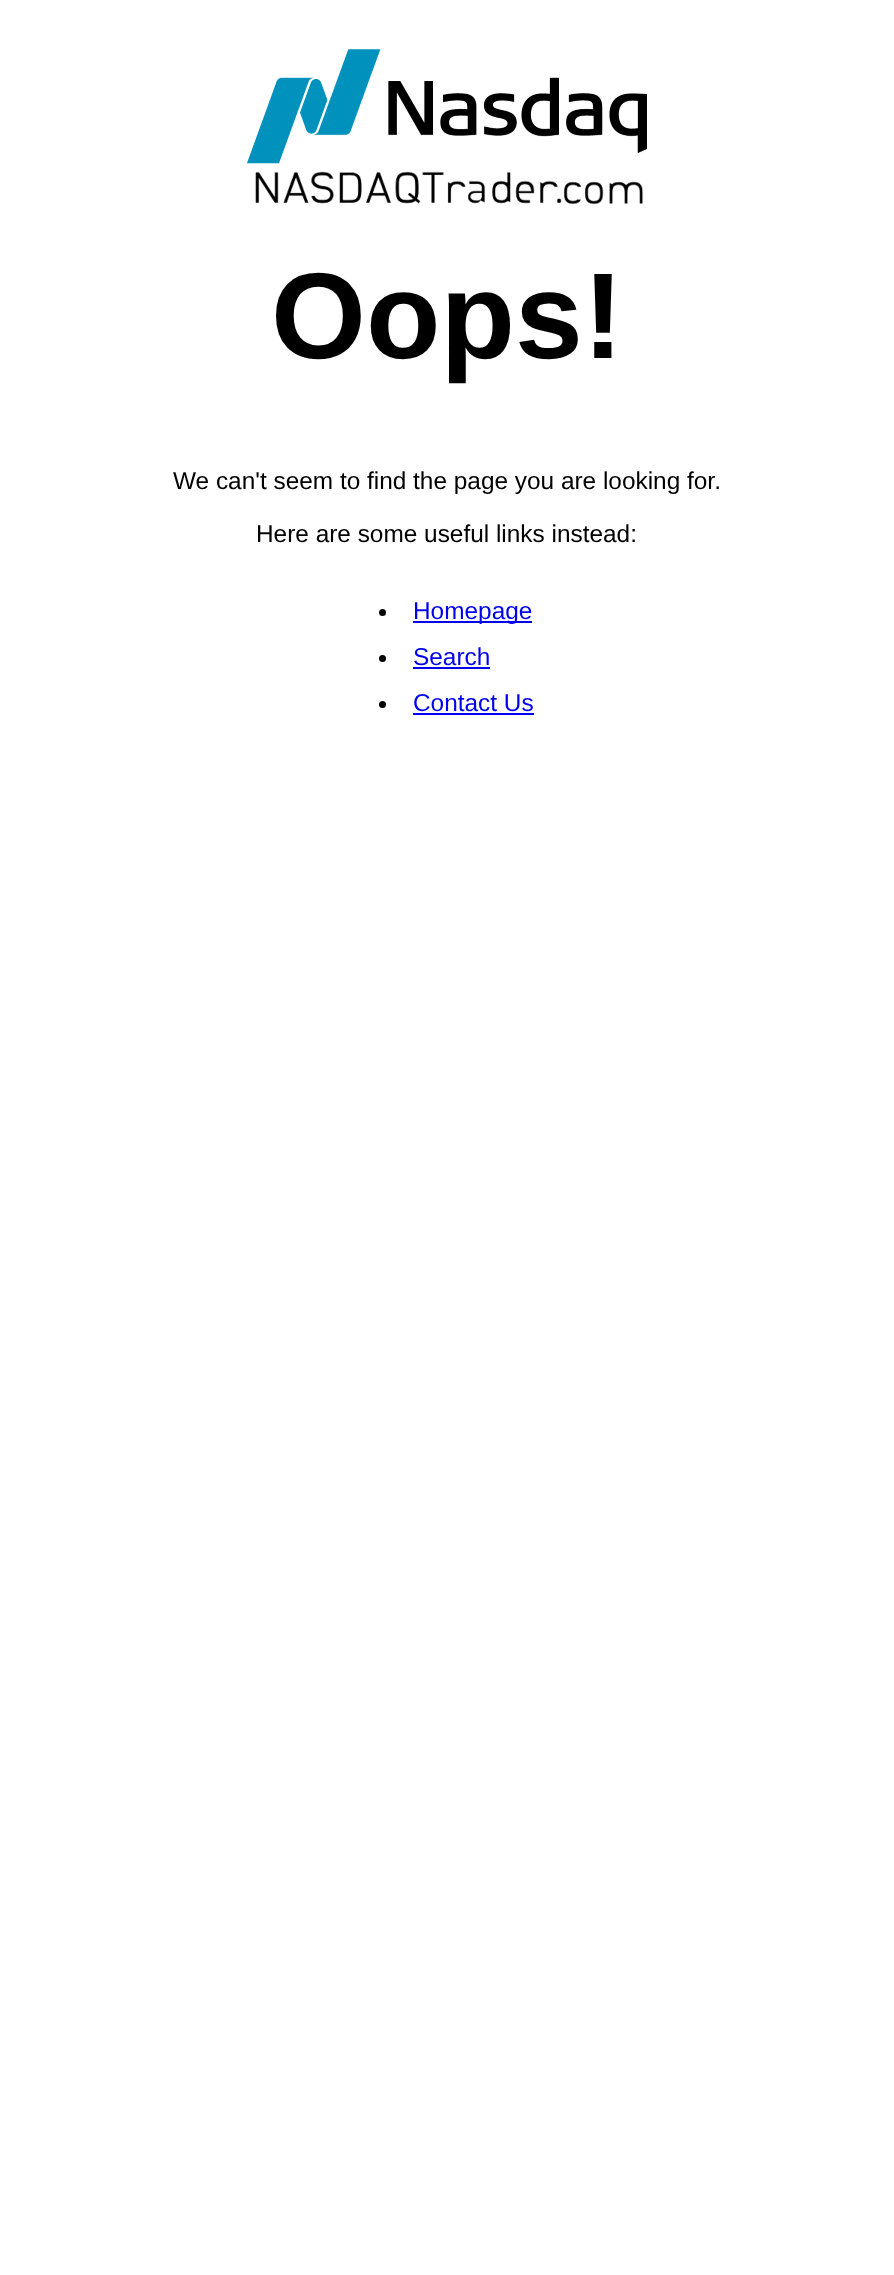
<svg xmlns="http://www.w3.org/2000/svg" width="894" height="2275">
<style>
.a{font:bold 122px Liberation Sans;fill:#000}
.b{font:24.4px Liberation Sans;fill:#000}
.c{font:24.4px Liberation Sans;fill:#00e}
</style>
<rect width="100%" height="100%" fill="#fff"/>
<image href="1.png" x="247" y="49" width="400" height="156"/>
<circle fill="#000" cx="382.5" cy="612.5" r="3.5"/>
<path fill="#00e" d="M413 621h119v2H413z"/>
<circle fill="#000" cx="382.5" cy="658.5" r="3.5"/>
<path fill="#00e" d="M413 667h77v2H413z"/>
<circle fill="#000" cx="382.5" cy="704.5" r="3.5"/>
<path fill="#00e" d="M413 713h121v2H413z"/>
<text class="a" x="271" y="358">Oops!</text>
<text class="b" x="173" y="489">We can't seem to find the page you are looking for.</text>
<text class="b" x="256" y="542">Here are some useful links instead:</text>
<text class="c" x="413" y="619">Homepage</text>
<text class="c" x="413" y="665">Search</text>
<text class="c" x="413" y="711">Contact Us</text>
</svg>
